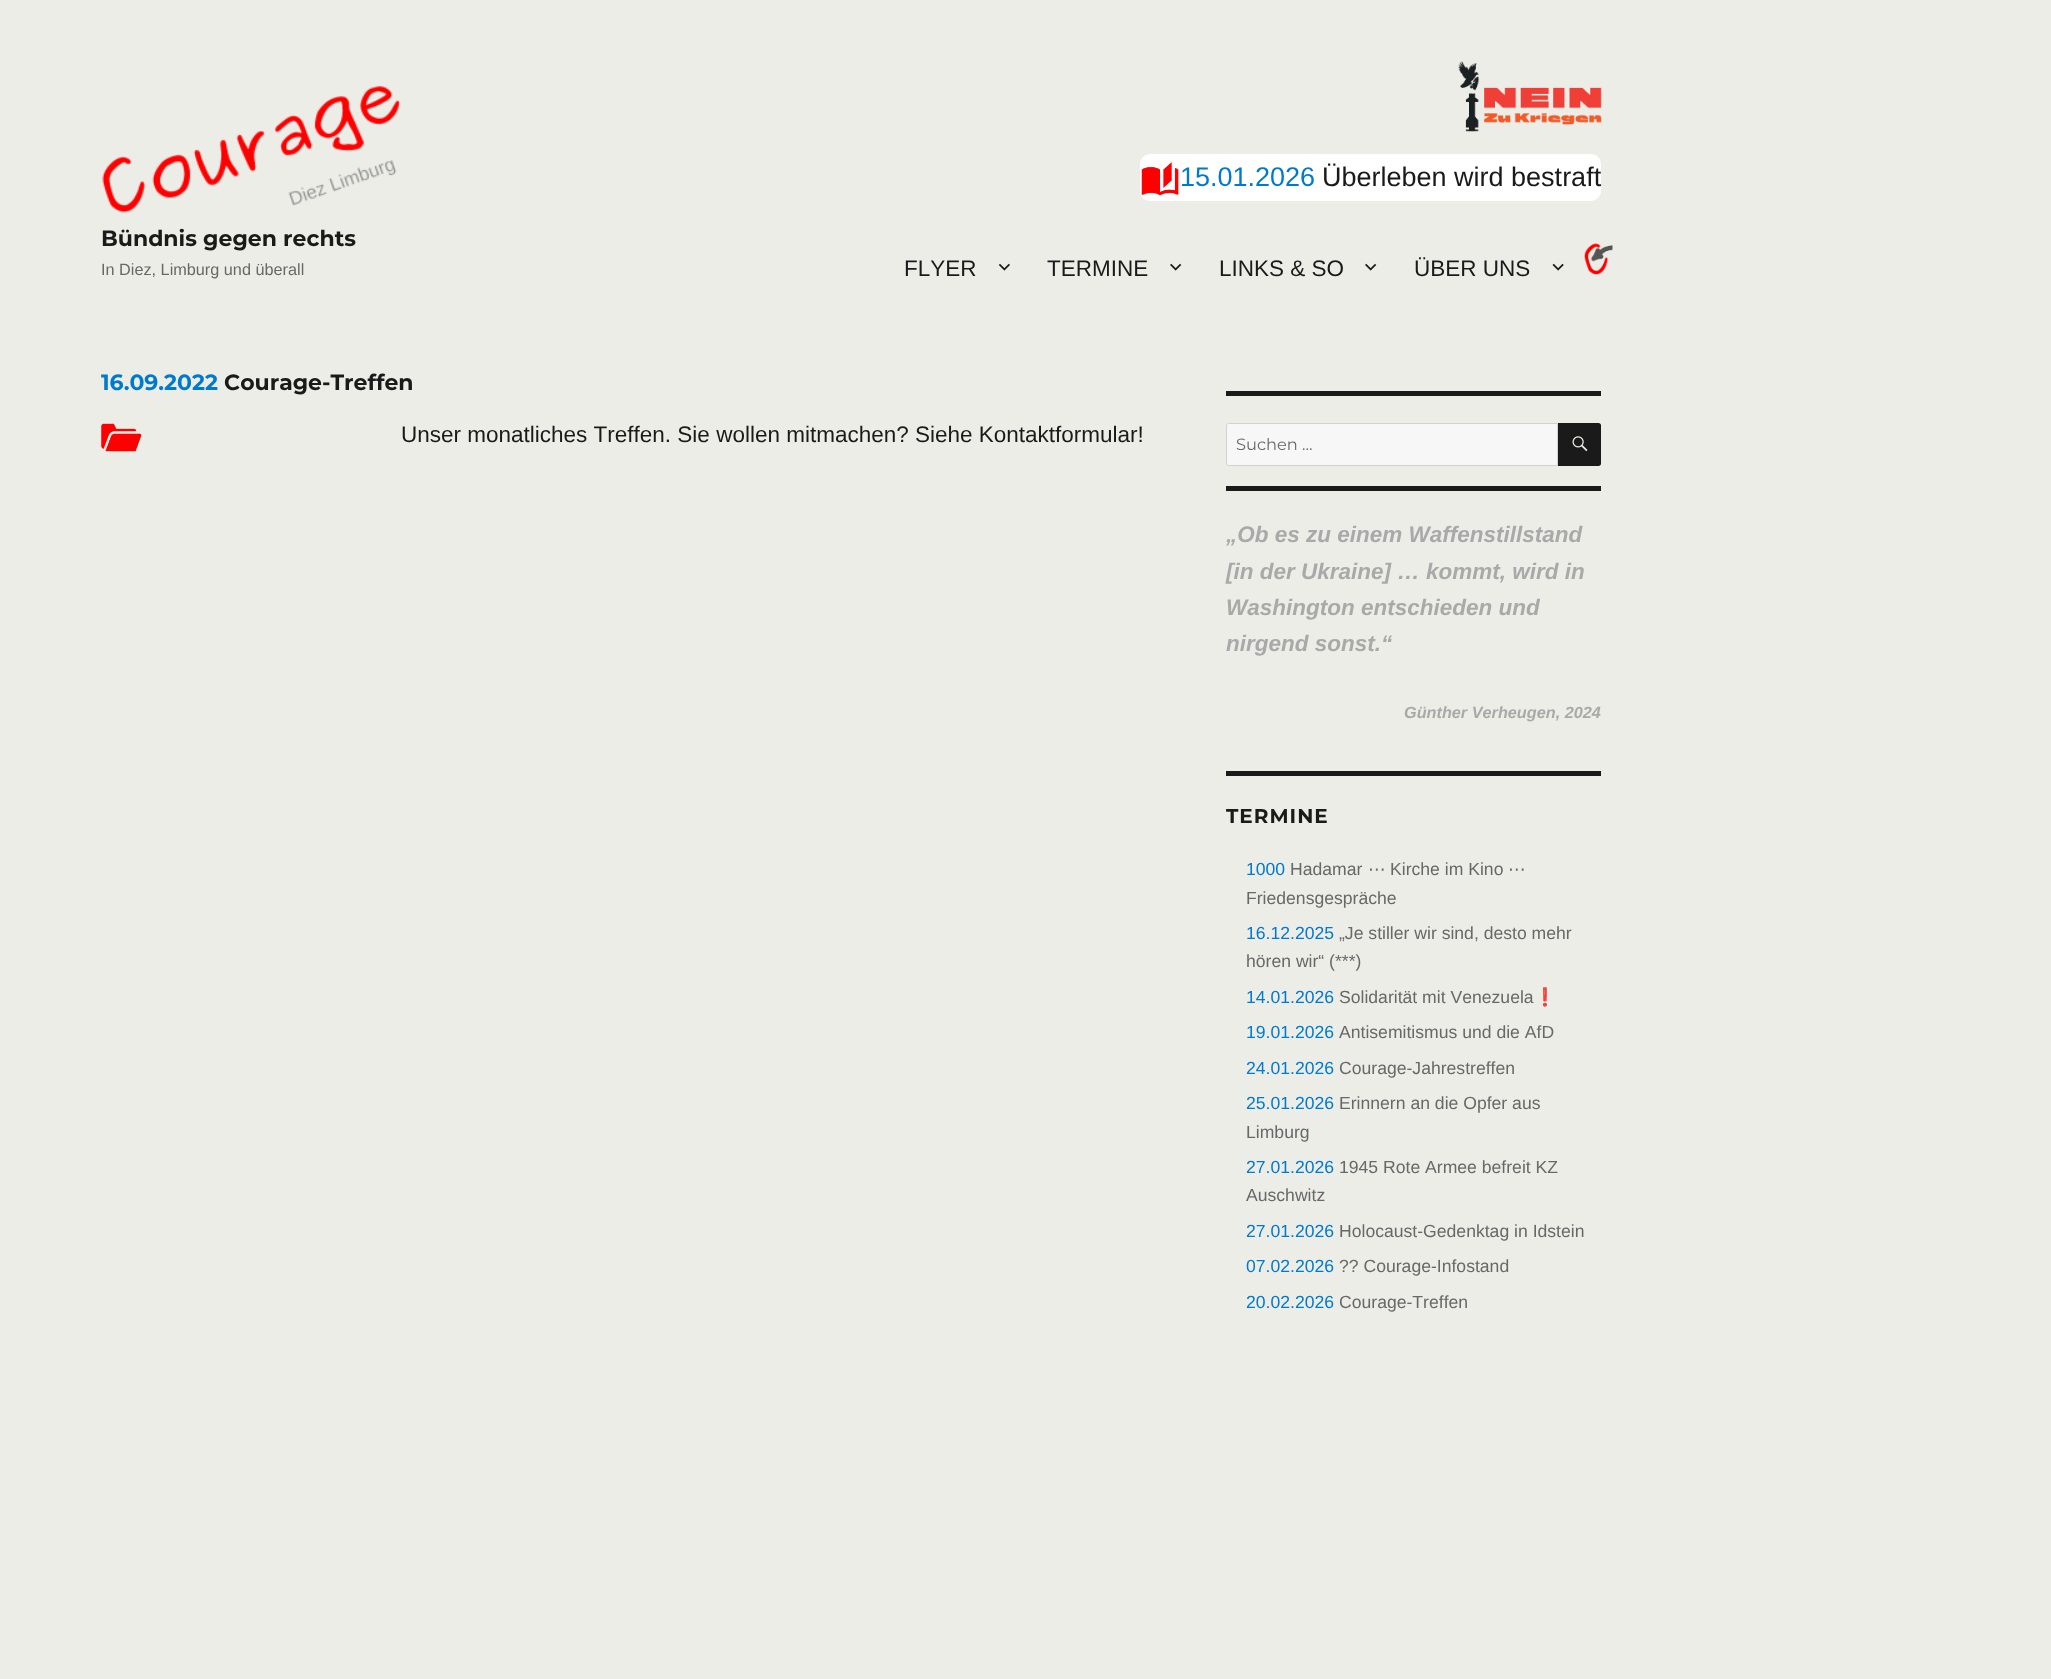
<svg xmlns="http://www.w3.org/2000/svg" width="2051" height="1679">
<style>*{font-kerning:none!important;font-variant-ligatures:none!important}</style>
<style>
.a{font:100 22px Montserrat;fill:#1a1a1a}
.b{font:16.25px Liberation Sans;fill:#686868}
.c{font:27px Liberation Sans;fill:#007acc}
.d{font:27px Liberation Sans;fill:#1a1a1a}
.e{font:22.5px Liberation Sans;fill:#1a1a1a}
.f{font:100 22px Montserrat;fill:#007acc}
.g{font:100 16.25px 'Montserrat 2';fill:#686868}
.h{font:italic bold 22.5px Liberation Sans;fill:#a9a9a9}
.i{font:italic bold 16.25px Liberation Sans;fill:#a9a9a9}
.j{font:100 20px Montserrat;letter-spacing:1px;fill:#1a1a1a}
.k{font:17.6px Liberation Sans;fill:#007acc}
.l{font:17.6px Liberation Sans;fill:#686868}
.m{font:17.6px DejaVu Sans;fill:#686868}
.n{font:17.6px Noto Color Emoji;fill:#686868}
</style>
<rect width="100%" height="100%" fill="#edede8"/>
<image href="1.png" x="102" y="86" width="299" height="127"/>
<image href="2.png" x="1458" y="61" width="144" height="71"/>
<rect fill="#fff" x="1140" y="154" width="461" height="47" rx="10"/>
<image href="3.png" x="1141" y="162" width="38" height="34"/>
<image href="4.png" x="998" y="263" width="12" height="8"/>
<image href="5.png" x="1170" y="263" width="12" height="8"/>
<image href="5.png" x="1365" y="263" width="12" height="8"/>
<image href="6.png" x="1552" y="263" width="12" height="8"/>
<image href="7.png" x="1584" y="243" width="29" height="32"/>
<image href="8.png" x="101" y="423" width="41" height="29"/>
<path fill="#1a1a1a" d="M1226 391h375v5H1226z"/>
<path fill="#f7f7f7" stroke="#d1d1d1" d="M1228.5 423.5h329v42h-329c-1 0-2-1-2-2v-38c0-1 1-2 2-2z"/>
<path fill="#1a1a1a" d="M1558 423h40.5c1.5 0 2.5 1 2.5 2.5v38c0 1.5-1 2.5-2.5 2.5h-40.5z"/>
<image href="9.png" x="1572" y="436" width="16" height="16"/>
<path fill="#1a1a1a" d="M1226 486h375v5H1226z"/>
<path fill="#1a1a1a" d="M1226 771h375v5H1226z"/>
<text class="a" x="101" y="246">Bündnis gegen rechts</text>
<text class="b" x="101" y="275">In Diez, Limburg und überall</text>
<text class="c" x="1180" y="186">15.01.2026</text>
<text class="d" x="1322" y="186">Überleben wird bestraft</text>
<text class="e" x="904" y="276">FLYER</text>
<text class="e" x="1047" y="276">TERMINE</text>
<text class="e" x="1219" y="276">LINKS &amp; SO</text>
<text class="e" x="1414" y="276">ÜBER UNS</text>
<text class="f" x="101" y="390">16.09.2022</text>
<text class="a" x="224" y="390">Courage-Treffen</text>
<text class="e" x="401" y="442">Unser monatliches Treffen. Sie wollen mitmachen? Siehe Kontaktformular!</text>
<text class="g" x="1236" y="450">Suchen …</text>
<text class="h" x="1226" y="542">„Ob es zu einem Waffenstillstand</text>
<text class="h" x="1226" y="579">[in der Ukraine] … kommt, wird in</text>
<text class="h" x="1226" y="615">Washington entschieden und</text>
<text class="h" x="1226" y="651">nirgend sonst.“</text>
<text class="i" x="1404" y="718">Günther Verheugen, 2024</text>
<text class="j" x="1226" y="823">TERMINE</text>
<text class="k" x="1246" y="875">1000</text>
<text class="l" x="1290" y="875">Hadamar</text>
<text class="m" x="1368" y="875">⋯</text>
<text class="l" x="1390" y="875">Kirche im Kino</text>
<text class="m" x="1508" y="875">⋯</text>
<text class="l" x="1246" y="904">Friedensgespräche</text>
<text class="k" x="1246" y="939">16.12.2025</text>
<text class="l" x="1339" y="939">„Je stiller wir sind, desto mehr</text>
<text class="l" x="1246" y="967">hören wir“ (***)</text>
<text class="k" x="1246" y="1003">14.01.2026</text>
<text class="l" x="1339" y="1003">Solidarität mit Venezuela</text>
<text class="n" x="1534" y="1003">❗</text>
<text class="k" x="1246" y="1038">19.01.2026</text>
<text class="l" x="1339" y="1038">Antisemitismus und die AfD</text>
<text class="k" x="1246" y="1074">24.01.2026</text>
<text class="l" x="1339" y="1074">Courage-Jahrestreffen</text>
<text class="k" x="1246" y="1109">25.01.2026</text>
<text class="l" x="1339" y="1109">Erinnern an die Opfer aus</text>
<text class="l" x="1246" y="1138">Limburg</text>
<text class="k" x="1246" y="1173">27.01.2026</text>
<text class="l" x="1339" y="1173">1945 Rote Armee befreit KZ</text>
<text class="l" x="1246" y="1201">Auschwitz</text>
<text class="k" x="1246" y="1237">27.01.2026</text>
<text class="l" x="1339" y="1237">Holocaust-Gedenktag in Idstein</text>
<text class="k" x="1246" y="1272">07.02.2026</text>
<text class="l" x="1339" y="1272">?? Courage-Infostand</text>
<text class="k" x="1246" y="1308">20.02.2026</text>
<text class="l" x="1339" y="1308">Courage-Treffen</text>
</svg>
